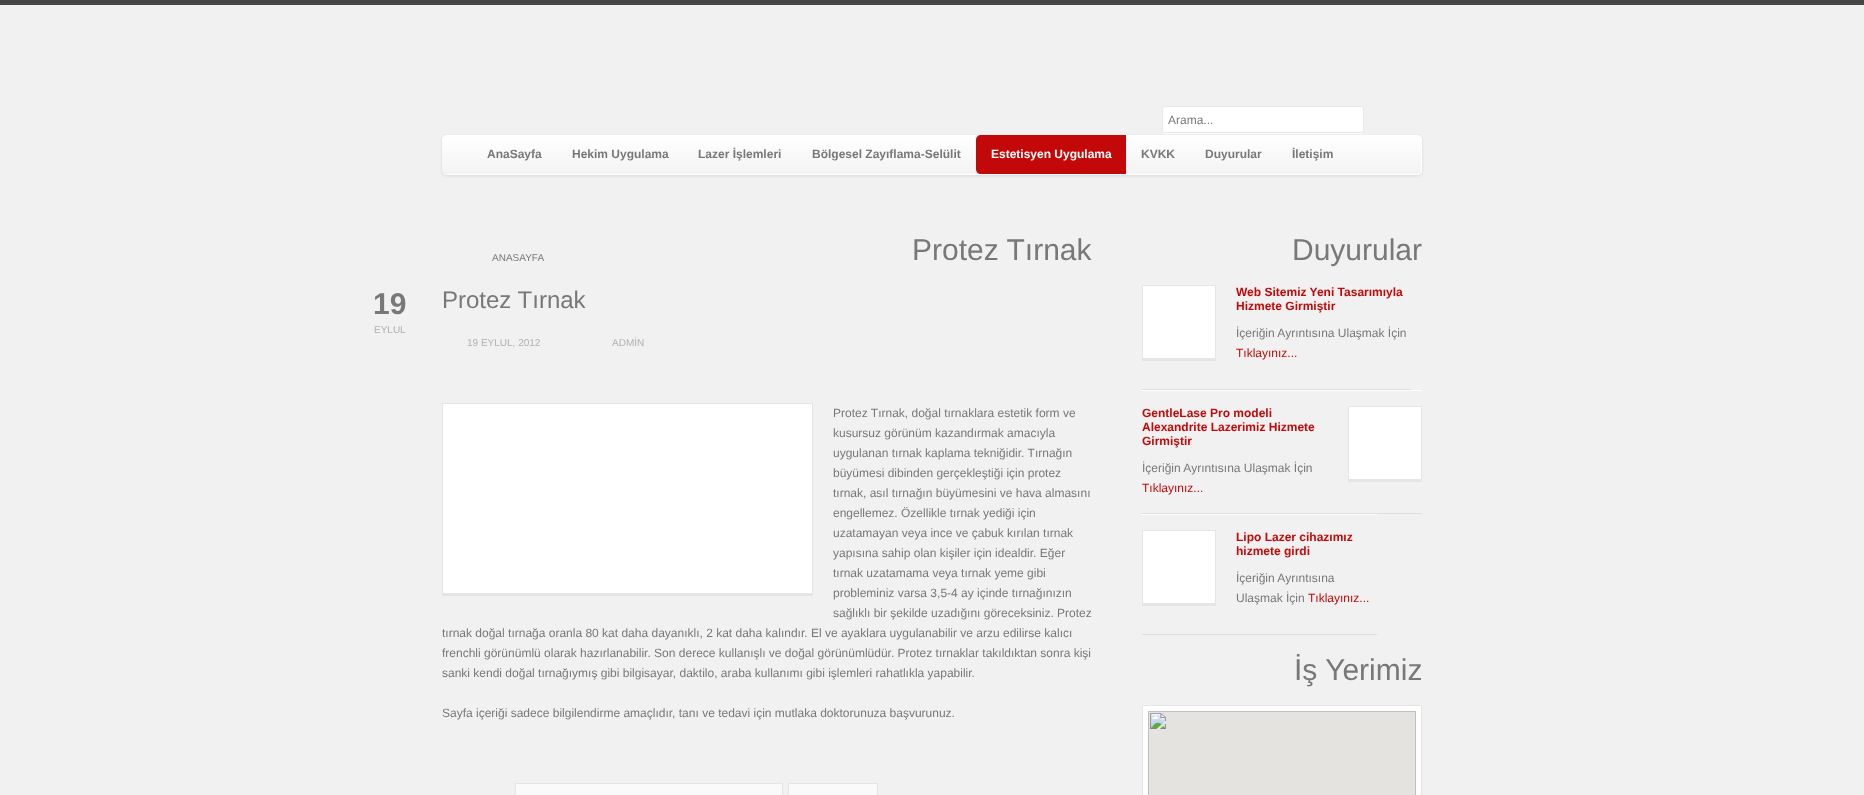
<svg xmlns="http://www.w3.org/2000/svg" width="1864" height="795">
<style>
.a{font:12px Liberation Sans;fill:#787878}
.b{font:bold 12px Liberation Sans;fill:#787878}
.c{font:bold 12px Liberation Sans;fill:#fff}
.d{font:10px Liberation Sans;fill:#787878}
.e{font:30px Liberation Sans;fill:#787878}
.f{font:bold 30px Liberation Sans;fill:#787878}
.g{font:10px Liberation Sans;fill:#b0b0b0}
.h{font:24px Liberation Sans;fill:#787878}
.i{font:bold 12px Liberation Sans;fill:#c20808}
.j{font:12px Liberation Sans;fill:#c20808}
</style>
<defs>
<linearGradient id="g1" gradientUnits="userSpaceOnUse" x1="932" y1="135" x2="932" y2="175"><stop offset="0" stop-color="#fff"/><stop offset="1" stop-color="#f3f3f3"/></linearGradient>
</defs>
<rect width="100%" height="100%" fill="#f1f1f1"/>
<path fill="#464646" d="M0 0h1864v5H0z"/>
<rect fill="#0000001a" filter="blur(1.5px)" x="442" y="136" width="980" height="40" rx="5"/>
<rect fill="url(#g1)" x="442" y="135" width="980" height="40" rx="5"/>
<path fill="#fff" d="M443 173c1 1 3 2 4 2h970c3 0 5-2 5-5v-30c0-1-1-3-2-4l1 3v30c0 3-2 5-5 5h-970z"/>
<path fill="#fff" d="M1162 130c0 2 1 4 3 4h196c2 0 3-2 3-4c0 2-1 3-3 3h-197l-1-1z"/>
<rect fill="#fff" stroke="#e7e7e7" x="1162.5" y="106.5" width="201" height="26" rx="2.5"/>
<path fill="#c20808" d="M981 135h145v39h-145c-3 0-5-2-5-5v-29c0-3 2-5 5-5z"/>
<path fill="#e5e5e5" d="M442 594h371v2H442z"/>
<path fill="#fff" stroke="#e5e5e5" d="M442.5 403.5h370v190H442.5z"/>
<path fill="#fafafa" d="M516 784h266v11H516z"/>
<path fill="#e5e5e5" d="M515 783h268v1H515z"/>
<path fill="#e5e5e5" d="M782 783h1v12H782z"/>
<path fill="#e5e5e5" d="M515 783h1v12H515z"/>
<path fill="#fafafa" d="M789 784h88v11H789z"/>
<path fill="#e5e5e5" d="M788 783h90v1H788z"/>
<path fill="#e5e5e5" d="M877 783h1v12H877z"/>
<path fill="#e5e5e5" d="M788 783h1v12H788z"/>
<path fill="#dedede" d="M1142 389h269v1H1142z"/>
<path fill="#e5e5e5" d="M1142 359h74v2H1142z"/>
<path fill="#fff" stroke="#e5e5e5" d="M1142.5 285.5h73v73H1142.5z"/>
<path fill="#fff" d="M1142 390h280v1H1142z"/>
<path fill="#dedede" d="M1142 513h280v1H1142z"/>
<path fill="#e5e5e5" d="M1348 480h74v2H1348z"/>
<path fill="#fff" stroke="#e5e5e5" d="M1348.5 406.5h73v73H1348.5z"/>
<path fill="#fff" d="M1142 514h235v1H1142z"/>
<path fill="#dedede" d="M1142 634h235v1H1142z"/>
<path fill="#e5e5e5" d="M1142 604h74v2H1142z"/>
<path fill="#fff" stroke="#e5e5e5" d="M1142.5 530.5h73v73H1142.5z"/>
<path fill="#fff" stroke="#e5e5e5" d="M1142.5 705.5h279v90H1142.5z"/>
<image href="1.png" x="1148" y="711" width="268" height="84"/>
<text class="a" x="1168" y="124">Arama...</text>
<text class="b" x="487" y="158">AnaSayfa</text>
<text class="b" x="572" y="158">Hekim Uygulama</text>
<text class="b" x="698" y="158">Lazer İşlemleri</text>
<text class="b" x="812" y="158">Bölgesel Zayıflama-Selülit</text>
<text class="c" x="991" y="158">Estetisyen Uygulama</text>
<text class="b" x="1141" y="158">KVKK</text>
<text class="b" x="1205" y="158">Duyurular</text>
<text class="b" x="1292" y="158">İletişim</text>
<text class="d" x="492" y="261">ANASAYFA</text>
<text class="e" x="912" y="260">Protez Tırnak</text>
<text class="f" x="373" y="314">19</text>
<text class="g" x="374" y="333">EYLUL</text>
<text class="h" x="442" y="308">Protez Tırnak</text>
<text class="g" x="467" y="346">19 EYLUL, 2012</text>
<text class="g" x="612" y="346">ADMİN</text>
<text class="a" x="833" y="417">Protez Tırnak, doğal tırnaklara estetik form ve</text>
<text class="a" x="833" y="437">kusursuz görünüm kazandırmak amacıyla</text>
<text class="a" x="833" y="457">uygulanan tırnak kaplama tekniğidir. Tırnağın</text>
<text class="a" x="833" y="477">büyümesi dibinden gerçekleştiği için protez</text>
<text class="a" x="833" y="497">tırnak, asıl tırnağın büyümesini ve hava almasını</text>
<text class="a" x="833" y="517">engellemez. Özellikle tırnak yediği için</text>
<text class="a" x="833" y="537">uzatamayan veya ince ve çabuk kırılan tırnak</text>
<text class="a" x="833" y="557">yapısına sahip olan kişiler için idealdir. Eğer</text>
<text class="a" x="833" y="577">tırnak uzatamama veya tırnak yeme gibi</text>
<text class="a" x="833" y="597">probleminiz varsa 3,5-4 ay içinde tırnağınızın</text>
<text class="a" x="833" y="617">sağlıklı bir şekilde uzadığını göreceksiniz. Protez</text>
<text class="a" x="442" y="637">tırnak doğal tırnağa oranla 80 kat daha dayanıklı, 2 kat daha kalındır. El ve ayaklara uygulanabilir ve arzu edilirse kalıcı</text>
<text class="a" x="442" y="657">frenchli görünümlü olarak hazırlanabilir. Son derece kullanışlı ve doğal görünümlüdür. Protez tırnaklar takıldıktan sonra kişi</text>
<text class="a" x="442" y="677">sanki kendi doğal tırnağıymış gibi bilgisayar, daktilo, araba kullanımı gibi işlemleri rahatlıkla yapabilir.</text>
<text class="a" x="442" y="717">Sayfa içeriği sadece bilgilendirme amaçlıdır, tanı ve tedavi için mutlaka doktorunuza başvurunuz.</text>
<text class="e" x="1292" y="260">Duyurular</text>
<text class="i" x="1236" y="296">Web Sitemiz Yeni Tasarımıyla</text>
<text class="i" x="1236" y="310">Hizmete Girmiştir</text>
<text class="a" x="1236" y="337">İçeriğin Ayrıntısına Ulaşmak İçin</text>
<text class="j" x="1236" y="357">Tıklayınız...</text>
<text class="i" x="1142" y="417">GentleLase Pro modeli</text>
<text class="i" x="1142" y="431">Alexandrite Lazerimiz Hizmete</text>
<text class="i" x="1142" y="445">Girmiştir</text>
<text class="a" x="1142" y="472">İçeriğin Ayrıntısına Ulaşmak İçin</text>
<text class="j" x="1142" y="492">Tıklayınız...</text>
<text class="i" x="1236" y="541">Lipo Lazer cihazımız</text>
<text class="i" x="1236" y="555">hizmete girdi</text>
<text class="a" x="1236" y="582">İçeriğin Ayrıntısına</text>
<text class="a" x="1236" y="602">Ulaşmak İçin</text>
<text class="j" x="1308" y="602">Tıklayınız...</text>
<text class="e" x="1294" y="680">İş Yerimiz</text>
</svg>
